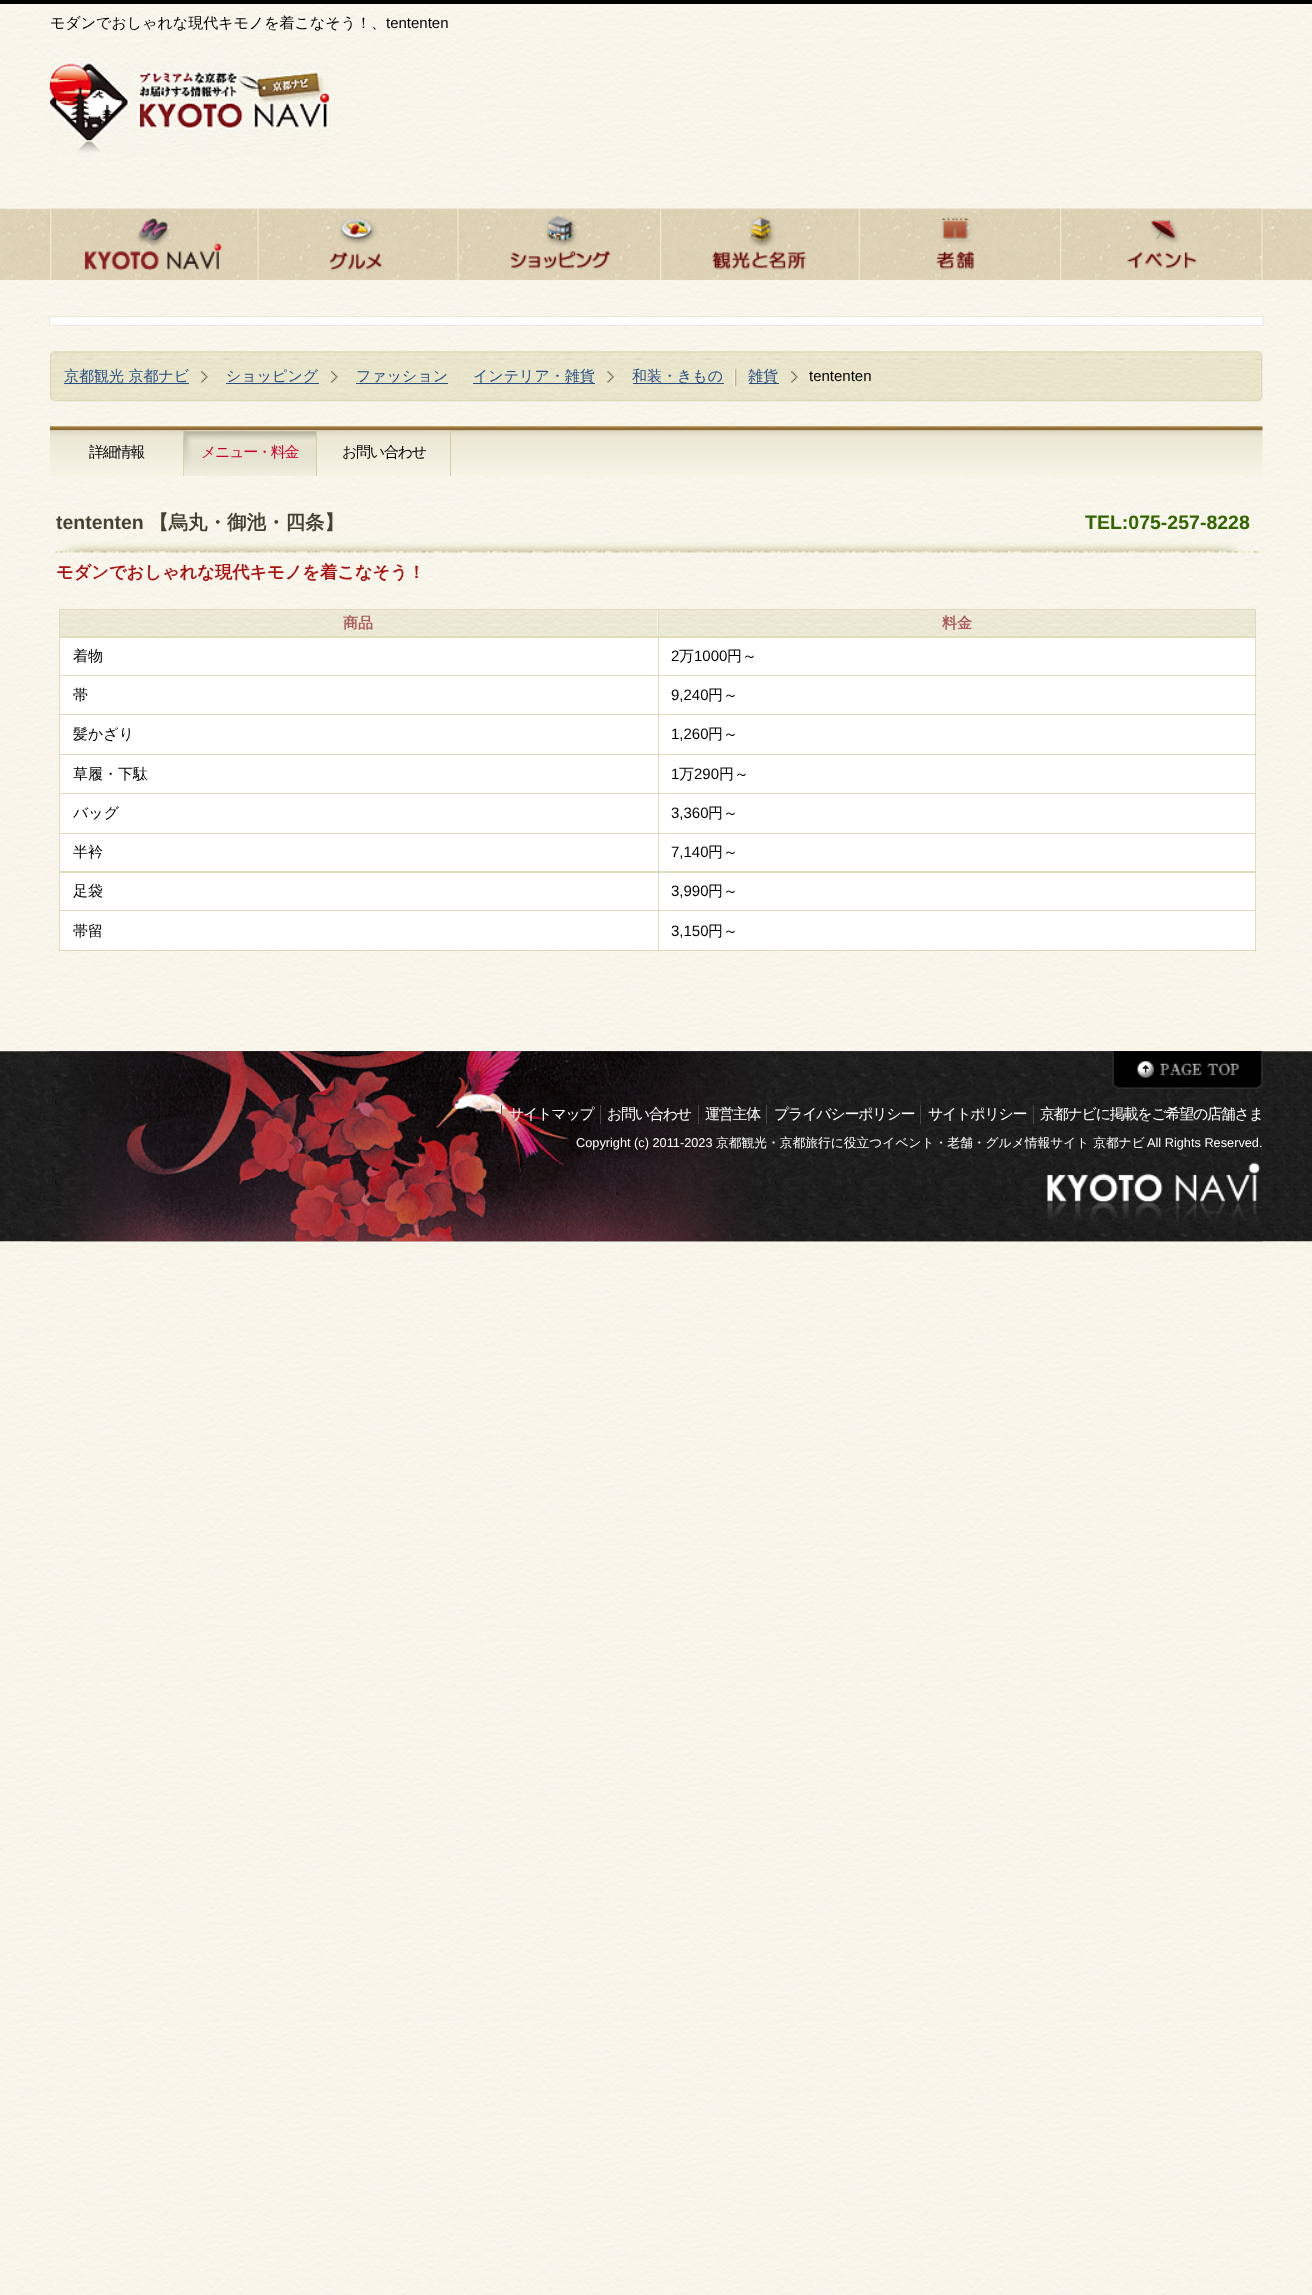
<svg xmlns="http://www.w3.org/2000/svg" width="1312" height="2295">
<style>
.a{font:500 15px WenQuanYi Zen Hei;fill:#000}
.b{font:15px Liberation Sans;fill:#000}
.c{font:500 15px WenQuanYi Zen Hei;fill:#284e83}
.d{font:500 15px WenQuanYi Zen Hei;letter-spacing:-1.25px;fill:#000}
.e{font:500 15px WenQuanYi Zen Hei;letter-spacing:-1.25px;fill:#c03}
.f{font:bold 19.5px Liberation Sans;fill:#444230}
.g{font:bold 19.5px WenQuanYi Zen Hei;fill:#444230}
.h{font:bold 19.5px Liberation Sans;fill:#360}
.i{font:bold 17.25px WenQuanYi Zen Hei;fill:#ab1111}
.j{font:bold 15px WenQuanYi Zen Hei;fill:#aa5959}
.k{font:500 15px WenQuanYi Zen Hei;letter-spacing:-1.25px;fill:#fff}
.l{font:12.75px Liberation Sans;fill:#fff}
.m{font:500 12.75px WenQuanYi Zen Hei;fill:#fff}
</style>
<rect width="100%" height="100%" fill="#fff"/>
<image href="1.png" x="0" y="4" width="1312" height="2291"/>
<path fill="#000" d="M0 0h1312v4H0z"/>
<image href="2.png" x="50" y="62" width="280" height="93"/>
<image href="3.png" x="0" y="208" width="1312" height="72"/>
<image href="4.png" x="50" y="208" width="208" height="72"/>
<image href="5.png" x="257" y="208" width="201" height="72"/>
<image href="6.png" x="457" y="208" width="203" height="72"/>
<image href="7.png" x="660" y="208" width="199" height="72"/>
<image href="8.png" x="858" y="208" width="202" height="72"/>
<image href="9.png" x="1060" y="208" width="203" height="72"/>
<path fill="#fff" stroke="#e8e9db" d="M49.5 316.5h1214v9H49.5z"/>
<image href="11.png" x="50" y="357" width="1213" height="38"/>
<image href="10.png" x="50" y="351" width="1213" height="7"/>
<path fill="#dbd6b3" d="M1261 358h1v37H1261z"/>
<path fill="#dbd6b3" d="M50 358h1v37H50z"/>
<image href="12.png" x="201" y="371" width="7" height="12"/>
<path fill="#284e83" d="M64 383h125v1H64z"/>
<image href="13.png" x="331" y="371" width="7" height="12"/>
<path fill="#284e83" d="M226 383h93v1H226z"/>
<image href="14.png" x="607" y="371" width="7" height="12"/>
<path fill="#e7e3d2" d="M457 368h3v19H457z"/>
<path fill="#284e83" d="M356 383h92v1H356z"/>
<path fill="#284e83" d="M473 383h122v1H473z"/>
<image href="15.png" x="791" y="371" width="7" height="12"/>
<image href="16.png" x="733" y="368" width="4" height="19"/>
<path fill="#284e83" d="M633 383h91v1H633z"/>
<path fill="#284e83" d="M749 383h30v1H749z"/>
<image href="17.png" x="50" y="395" width="1213" height="7"/>
<image href="18.png" x="50" y="426" width="1213" height="50"/>
<image href="19.png" x="50" y="430" width="133" height="1"/>
<path fill="#d5cf9f" d="M183 430h1v46H183z"/>
<image href="20.png" x="183" y="430" width="133" height="46"/>
<path fill="#d5cf9f" d="M316 430h1v46H316z"/>
<image href="21.png" x="317" y="430" width="133" height="1"/>
<path fill="#d5cf9f" d="M450 430h1v46H450z"/>
<image href="22.png" x="50" y="537" width="1213" height="18"/>
<path fill="#dedaba" d="M59 609h1197v342H59z"/>
<path fill="#fff" d="M657 610h1v26H657z"/>
<image href="23.png" x="60" y="610" width="598" height="27"/>
<image href="24.png" x="658" y="610" width="597" height="27"/>
<path fill="#fff" d="M60 638h598v37H60z"/>
<path fill="#fff" d="M659 638h596v37H659z"/>
<path fill="#fff" d="M60 676h598v38H60z"/>
<path fill="#fff" d="M659 676h596v38H659z"/>
<path fill="#fff" d="M60 715h598v39H60z"/>
<path fill="#fff" d="M659 715h596v39H659z"/>
<path fill="#fff" d="M60 755h598v38H60z"/>
<path fill="#fff" d="M659 755h596v38H659z"/>
<path fill="#fff" d="M60 794h598v39H60z"/>
<path fill="#fff" d="M659 794h596v39H659z"/>
<path fill="#fff" d="M60 834h598v37H60z"/>
<path fill="#fff" d="M659 834h596v37H659z"/>
<path fill="#fff" d="M60 873h598v37H60z"/>
<path fill="#fff" d="M659 873h596v37H659z"/>
<path fill="#fff" d="M60 911h598v39H60z"/>
<path fill="#fff" d="M659 911h596v39H659z"/>
<image href="25.png" x="0" y="1051" width="1312" height="191"/>
<image href="26.png" x="50" y="1051" width="1213" height="191"/>
<image href="27.png" x="1112" y="1051" width="151" height="38"/>
<path fill="#4f4747" d="M501 1105h1v19H501z"/>
<path fill="#4f4747" d="M600 1105h1v19H600z"/>
<path fill="#4f4747" d="M698 1105h1v19H698z"/>
<path fill="#4f4747" d="M766 1105h1v19H766z"/>
<path fill="#4f4747" d="M920 1105h1v19H920z"/>
<path fill="#4f4747" d="M1033 1105h1v19H1033z"/>
<text class="a" x="50" y="28">モダンでおしゃれな現代キモノを着こなそう！、</text>
<text class="b" x="386" y="28">tententen</text>
<text class="c" x="64" y="381">京都観光 京都ナビ</text>
<text class="c" x="226" y="381">ショッピング</text>
<text class="c" x="356" y="381">ファッション</text>
<text class="c" x="473" y="381">インテリア・雑貨</text>
<text class="c" x="632" y="381">和装・きもの</text>
<text class="c" x="748" y="381">雑貨</text>
<text class="b" x="809" y="381">tententen</text>
<text class="d" x="89" y="457">詳細情報</text>
<text class="e" x="201" y="457">メニュー・料金</text>
<text class="d" x="342" y="457">お問い合わせ</text>
<text class="f" x="56" y="529">tententen</text>
<text class="g" x="149" y="529">【烏丸・御池・四条】</text>
<text class="h" x="1085" y="529">TEL:075-257-8228</text>
<text class="i" x="56" y="578">モダンでおしゃれな現代キモノを着こなそう！</text>
<text class="j" x="343" y="628">商品</text>
<text class="j" x="942" y="628">料金</text>
<text class="a" x="73" y="661">着物</text>
<text class="b" x="671" y="661">2</text>
<text class="a" x="679" y="661">万</text>
<text class="b" x="694" y="661">1000</text>
<text class="a" x="727" y="661">円～</text>
<text class="a" x="73" y="700">帯</text>
<text class="b" x="671" y="700">9,240</text>
<text class="a" x="708" y="700">円～</text>
<text class="a" x="73" y="739">髪かざり</text>
<text class="b" x="671" y="739">1,260</text>
<text class="a" x="708" y="739">円～</text>
<text class="a" x="73" y="779">草履・下駄</text>
<text class="b" x="671" y="779">1</text>
<text class="a" x="679" y="779">万</text>
<text class="b" x="694" y="779">290</text>
<text class="a" x="719" y="779">円～</text>
<text class="a" x="73" y="818">バッグ</text>
<text class="b" x="671" y="818">3,360</text>
<text class="a" x="708" y="818">円～</text>
<text class="a" x="73" y="857">半衿</text>
<text class="b" x="671" y="857">7,140</text>
<text class="a" x="708" y="857">円～</text>
<text class="a" x="73" y="896">足袋</text>
<text class="b" x="671" y="896">3,990</text>
<text class="a" x="708" y="896">円～</text>
<text class="a" x="73" y="936">帯留</text>
<text class="b" x="671" y="936">3,150</text>
<text class="a" x="708" y="936">円～</text>
<text class="k" x="509" y="1119">サイトマップ</text>
<text class="k" x="607" y="1119">お問い合わせ</text>
<text class="k" x="705" y="1119">運営主体</text>
<text class="k" x="774" y="1119">プライバシーポリシー</text>
<text class="k" x="928" y="1119">サイトポリシー</text>
<text class="k" x="1040" y="1119">京都ナビに掲載をご希望の店舗さま</text>
<text class="l" x="576" y="1147">Copyright (c) 2011-2023</text>
<text class="m" x="716" y="1147">京都観光・京都旅行に役立つイベント・老舗・グルメ情報サイト 京都ナビ</text>
<text class="l" x="1147" y="1147">All Rights Reserved.</text>
</svg>
